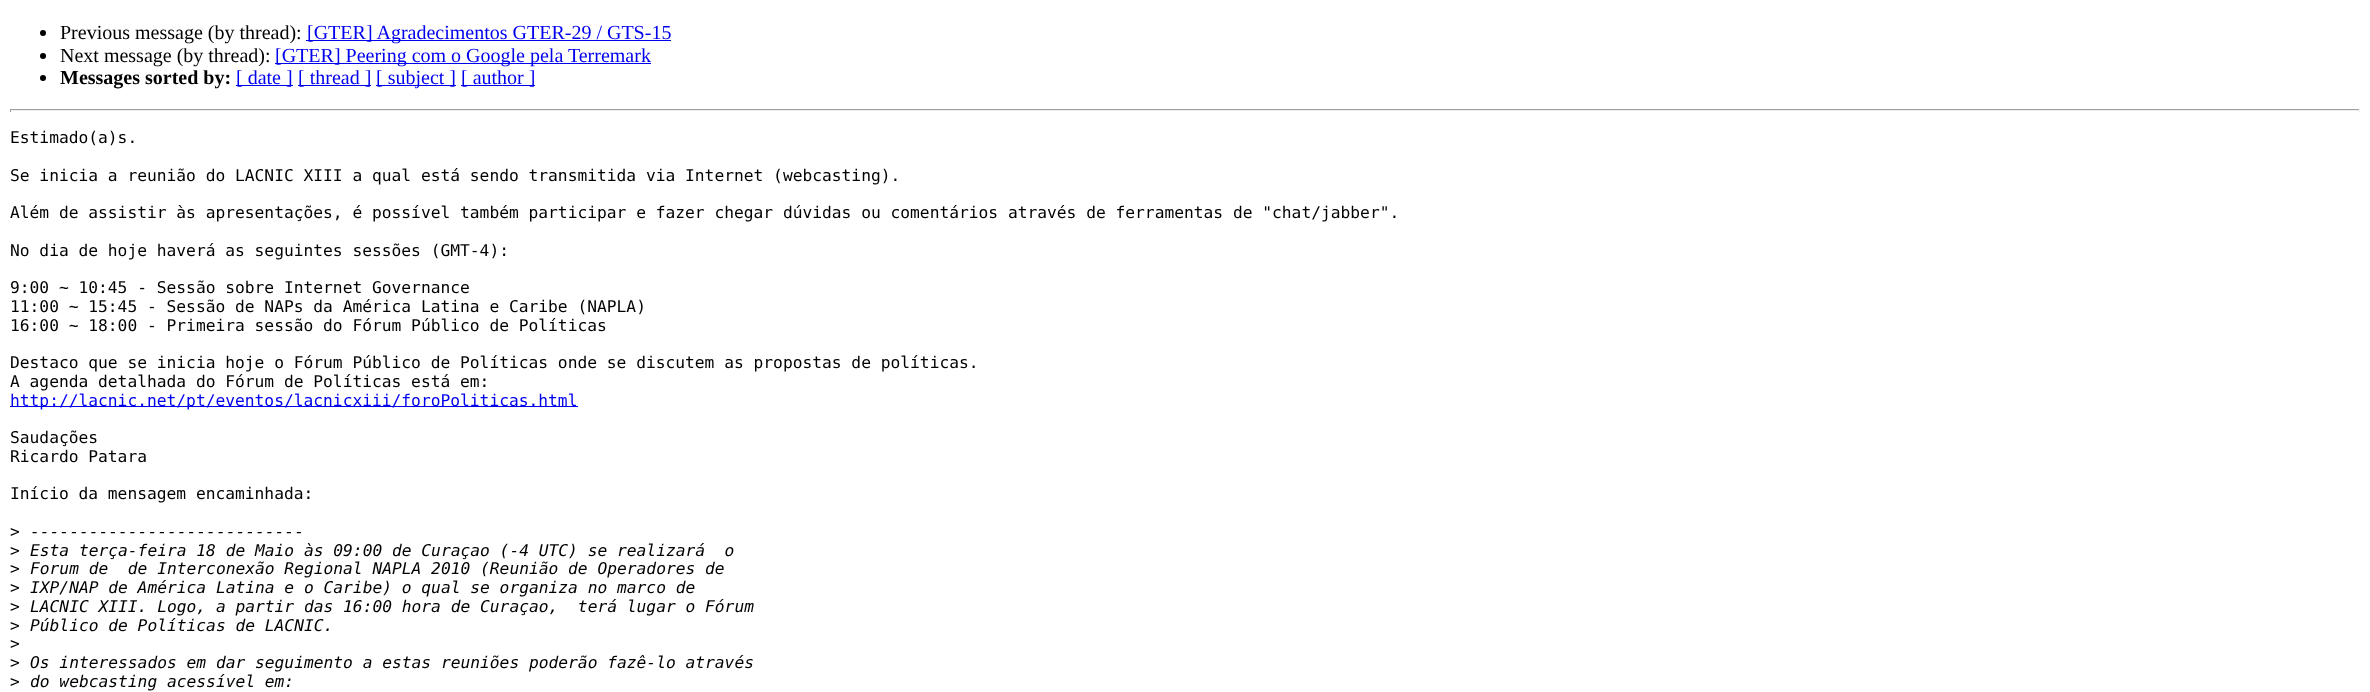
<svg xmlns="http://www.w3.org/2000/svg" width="2370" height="692">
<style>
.a{font:20px Liberation Serif;fill:#000}
.b{font:20px Liberation Serif;fill:#00e}
.c{font:bold 20px Liberation Serif;fill:#000}
.d{font:16.25px DejaVu Sans Mono;fill:#000}
.e{font:16.25px DejaVu Sans Mono;fill:#00e}
.f{font:italic 16.25px DejaVu Sans Mono;fill:#000}
</style>
<rect width="100%" height="100%" fill="#fff"/>
<circle fill="#000" cx="43" cy="33" r="3"/>
<path fill="#00e" d="M306 40h365v1H306z"/>
<circle fill="#000" cx="43" cy="56" r="3"/>
<path fill="#00e" d="M275 63h376v1H275z"/>
<circle fill="#000" cx="43" cy="78" r="3"/>
<path fill="#00e" d="M236 85h57v1H236z"/>
<path fill="#00e" d="M298 85h73v1H298z"/>
<path fill="#00e" d="M376 85h80v1H376z"/>
<path fill="#00e" d="M461 85h74v1H461z"/>
<path fill="#9f9f9f" d="M10 109h2350v1H10z"/>
<path fill="#eee" d="M2359 109h1v3H2359z"/>
<path fill="#eee" d="M10 110h2350v1H10z"/>
<path fill="#9f9f9f" d="M10 109h1v3H10z"/>
<path fill="#00e" d="M10 406h568v1H10z"/>
<text class="a" x="60" y="39">Previous message (by thread):</text>
<text class="b" x="307" y="39">[GTER] Agradecimentos GTER-29 / GTS-15</text>
<text class="a" x="60" y="62">Next message (by thread):</text>
<text class="b" x="275" y="62">[GTER] Peering com o Google pela Terremark</text>
<text class="c" x="60" y="84">Messages sorted by:</text>
<text class="b" x="236" y="84">[ date ]</text>
<text class="b" x="298" y="84">[ thread ]</text>
<text class="b" x="376" y="84">[ subject ]</text>
<text class="b" x="461" y="84">[ author ]</text>
<text class="d" x="10" y="143">Estimado(a)s.</text>
<text class="d" x="10" y="181">Se inicia a reunião do LACNIC XIII a qual está sendo transmitida via Internet (webcasting).</text>
<text class="d" x="10" y="218">Além de assistir às apresentações, é possível também participar e fazer chegar dúvidas ou comentários através de ferramentas de "chat/jabber".</text>
<text class="d" x="10" y="256">No dia de hoje haverá as seguintes sessões (GMT-4):</text>
<text class="d" x="10" y="293">9:00 ~ 10:45 - Sessão sobre Internet Governance</text>
<text class="d" x="10" y="312">11:00 ~ 15:45 - Sessão de NAPs da América Latina e Caribe (NAPLA)</text>
<text class="d" x="10" y="331">16:00 ~ 18:00 - Primeira sessão do Fórum Público de Políticas</text>
<text class="d" x="10" y="368">Destaco que se inicia hoje o Fórum Público de Políticas onde se discutem as propostas de políticas.</text>
<text class="d" x="10" y="387">A agenda detalhada do Fórum de Políticas está em:</text>
<text class="e" x="10" y="406">http://lacnic.net/pt/eventos/lacnicxiii/foroPoliticas.html</text>
<text class="d" x="10" y="443">Saudações</text>
<text class="d" x="10" y="462">Ricardo Patara</text>
<text class="d" x="10" y="499">Início da mensagem encaminhada:</text>
<text class="d" x="10" y="537">&gt;</text>
<text class="f" x="30" y="537">----------------------------</text>
<text class="d" x="10" y="556">&gt;</text>
<text class="f" xml:space="preserve" x="30" y="556">Esta terça-feira 18 de Maio às 09:00 de Curaçao (-4 UTC) se realizará  o</text>
<text class="d" x="10" y="574">&gt;</text>
<text class="f" xml:space="preserve" x="30" y="574">Forum de  de Interconexão Regional NAPLA 2010 (Reunião de Operadores de</text>
<text class="d" x="10" y="593">&gt;</text>
<text class="f" x="30" y="593">IXP/NAP de América Latina e o Caribe) o qual se organiza no marco de</text>
<text class="d" x="10" y="612">&gt;</text>
<text class="f" xml:space="preserve" x="30" y="612">LACNIC XIII. Logo, a partir das 16:00 hora de Curaçao,  terá lugar o Fórum</text>
<text class="d" x="10" y="631">&gt;</text>
<text class="f" x="30" y="631">Público de Políticas de LACNIC.</text>
<text class="d" x="10" y="649">&gt;</text>
<text class="d" x="10" y="668">&gt;</text>
<text class="f" x="30" y="668">Os interessados em dar seguimento a estas reuniões poderão fazê-lo através</text>
<text class="d" x="10" y="687">&gt;</text>
<text class="f" x="30" y="687">do webcasting acessível em:</text>
</svg>
